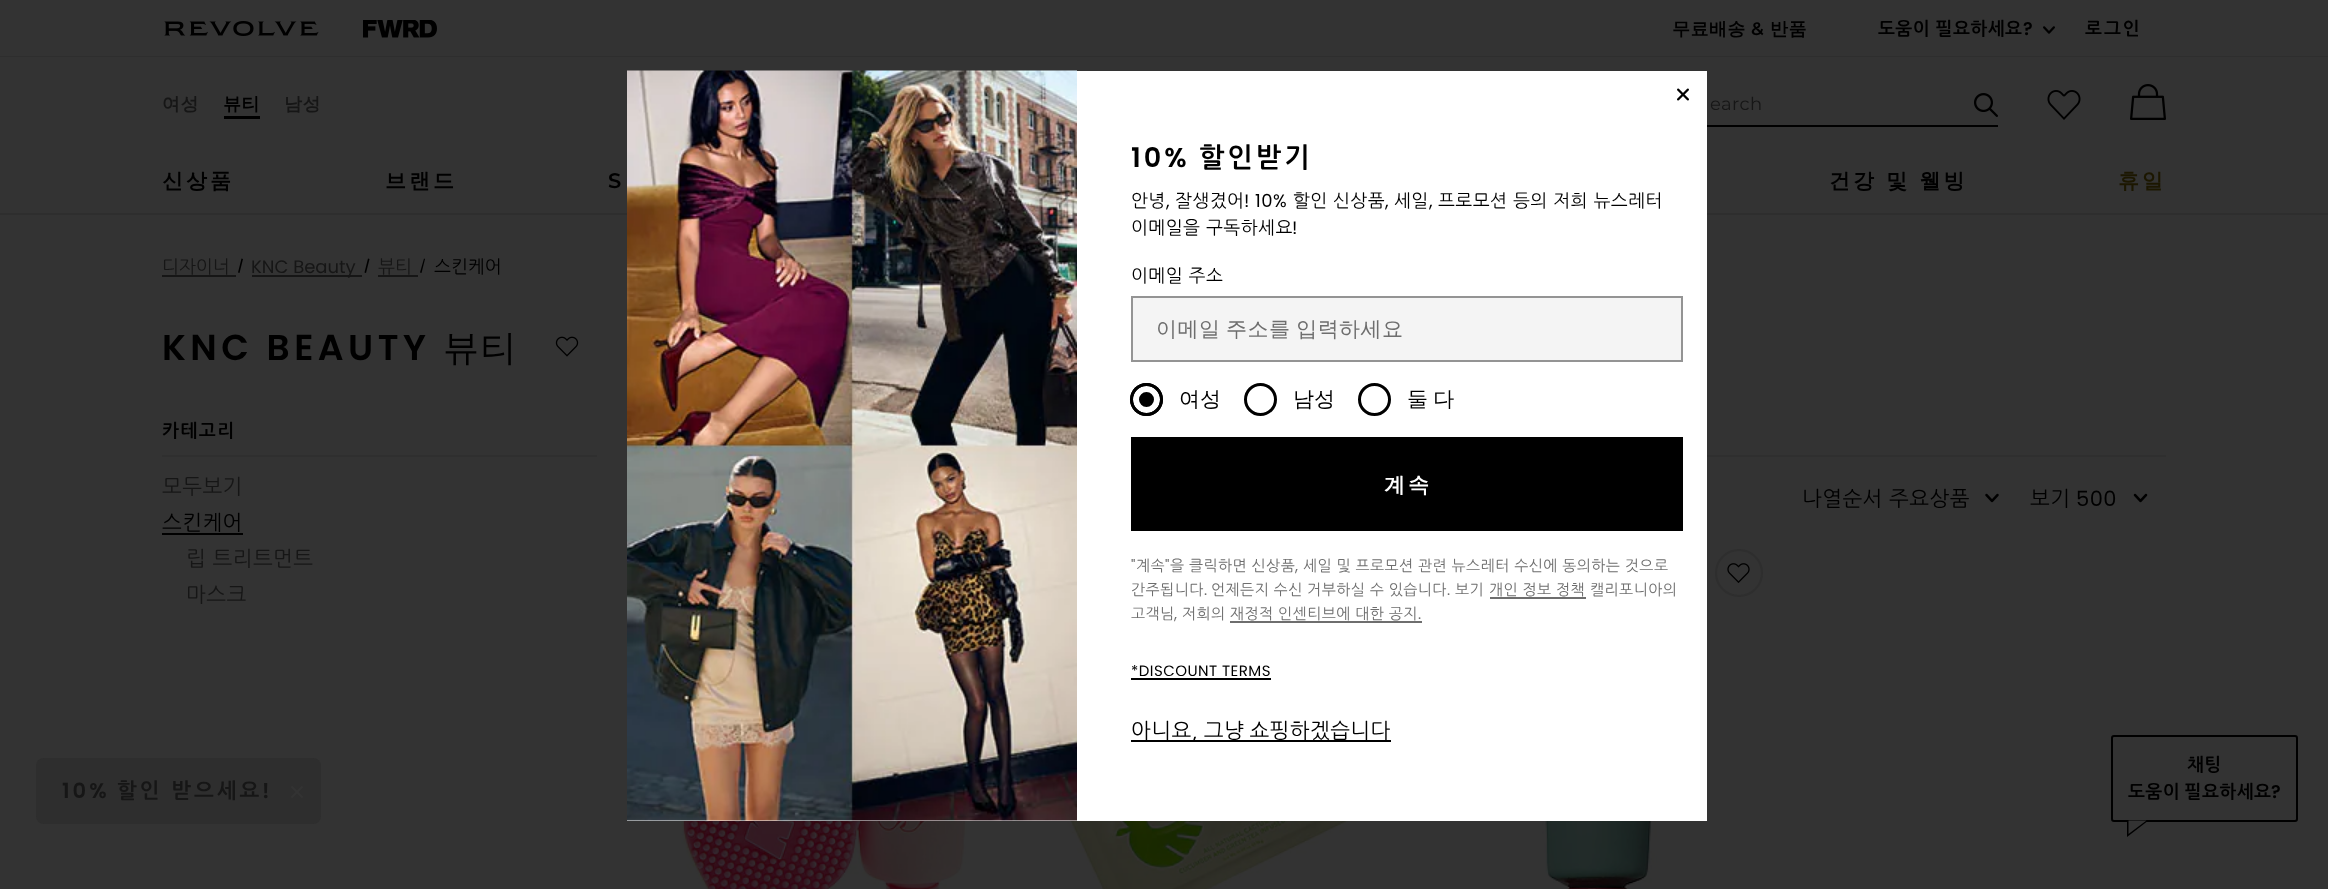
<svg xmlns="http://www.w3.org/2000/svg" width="2328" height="889">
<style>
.a{font:bold 18px WenQuanYi Zen Hei;letter-spacing:0.45px;fill:#000}
.b{font:100 18px Montserrat;letter-spacing:0.45px;fill:#000}
.c{font:bold 18px NanumGothic;letter-spacing:0.45px;fill:#000}
.d{font:600 18px Poppins;letter-spacing:0.45px;fill:#000}
.e{font:bold 18px NanumGothic;letter-spacing:2px;fill:#000}
.f{font:bold 18px WenQuanYi Zen Hei;letter-spacing:0.45px;fill:#161616}
.g{font:100 18px 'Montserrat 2';letter-spacing:0.45px;fill:#161616}
.h{font:bold 21px WenQuanYi Zen Hei;letter-spacing:3px;fill:#000}
.i{font:100 21px Montserrat;letter-spacing:3px;fill:#000}
.j{font:bold 21px WenQuanYi Zen Hei;letter-spacing:3px;fill:#1c1700}
.k{font:18px NanumGothic;fill:#161616}
.l{font:18px Poppins;fill:#161616}
.m{font:18px NanumGothic;fill:#000}
.n{font:600 36px Poppins;letter-spacing:4.5px;fill:#000}
.o{font:500 36px WenQuanYi Zen Hei;letter-spacing:1.5px;fill:#000}
.p{font:bold 18px NanumGothic;letter-spacing:1.5px;fill:#000}
.q{font:21px NanumGothic;letter-spacing:0.45px;fill:#161616}
.r{font:21px NanumGothic;letter-spacing:0.45px;fill:#000}
.s{font:21px Poppins;letter-spacing:0.45px;fill:#000}
.t{font:600 27px Poppins;letter-spacing:3px;fill:#000}
.u{font:bold 27px NanumGothic;letter-spacing:3px;fill:#000}
.v{font:18px NanumGothic;letter-spacing:0.45px;fill:#000}
.w{font:18px Poppins;letter-spacing:0.45px;fill:#000}
.x{font:500 21px WenQuanYi Zen Hei;letter-spacing:0.45px;fill:#6e6e6e}
.y{font:500 21px WenQuanYi Zen Hei;fill:#000}
.z{font:bold 21px WenQuanYi Zen Hei;letter-spacing:3px;fill:#fff}
.a1{font:15px Poppins;letter-spacing:0.45px;fill:#6e6e6e}
.b1{font:15px NanumGothic;letter-spacing:0.45px;fill:#6e6e6e}
.c1{font:15px Poppins;letter-spacing:0.45px;fill:#000}
.d1{font:600 21px Poppins;letter-spacing:3px;fill:#161616}
.e1{font:bold 21px NanumGothic;letter-spacing:3px;fill:#161616}
</style>
<rect width="100%" height="100%" fill="#333"/>
<path fill="#2e2e2e" d="M0 56h2328v1H0z"/>
<image href="1.png" x="164" y="21" width="155" height="15"/>
<image href="2.png" x="363" y="20" width="74" height="18"/>
<image href="3.png" x="2043" y="26" width="12" height="8"/>
<path fill="#000" d="M224 116h36v3H224z"/>
<path fill="#000" d="M1707 125h291v2H1707z"/>
<image href="4.png" x="1974" y="93" width="24" height="24"/>
<image href="5.png" x="2047" y="90" width="34" height="30"/>
<image href="6.png" x="2130" y="84" width="36" height="36"/>
<path fill="#2e2e2e" d="M0 213h2328v2H0z"/>
<path fill="#161616" d="M162 275h74v2H162z"/>
<path fill="#000" d="M241.5 258.5l1.5 .5l-3.5 14l-1.5-.5z"/>
<path fill="#161616" d="M252 275h110v2H252z"/>
<path fill="#161616" d="M378 275h40v2H378z"/>
<image href="7.png" x="555" y="336" width="24" height="21"/>
<path fill="#2f2f2f" d="M162 455h435v2H162z"/>
<path fill="#000" d="M162 533h81v2H162z"/>
<path fill="#2f2f2f" d="M1707 455h459v2H1707z"/>
<image href="8.png" x="1985" y="493" width="14" height="10"/>
<image href="9.png" x="2133" y="493" width="15" height="10"/>
<image href="10.png" x="681" y="821" width="314" height="68"/>
<image href="11.png" x="1056" y="821" width="321" height="68"/>
<circle fill="none" stroke="#2e2e2e" stroke-width="2" cx="1739" cy="573" r="23"/>
<image href="12.png" x="1727" y="563" width="23" height="20"/>
<image href="13.png" x="1516" y="821" width="156" height="68"/>
<path fill="#fff" d="M627 71h1080v750H627z"/>
<image href="14.png" x="1677" y="88" width="12" height="13"/>
<image href="15.png" x="627" y="70" width="450" height="751"/>
<path fill="#f4f4f4" stroke="#949494" stroke-width="2" d="M1132 297h550v64H1132z"/>
<circle fill="#000" cx="1146.5" cy="399.5" r="16.5"/>
<circle fill="none" stroke="#fff" stroke-width="6" cx="1146.5" cy="399.5" r="10.5"/>
<circle fill="none" stroke="#000" stroke-width="3" cx="1146.5" cy="399.5" r="15"/>
<circle fill="none" stroke="#000" stroke-width="3" cx="1260.5" cy="399.5" r="15"/>
<circle fill="none" stroke="#000" stroke-width="3" cx="1374.5" cy="399.5" r="15"/>
<path fill="#000" d="M1131 437h552v94H1131z"/>
<path fill="#6e6e6e" d="M1490 597h96v2H1490z"/>
<path fill="#6e6e6e" d="M1230 621h192v2H1230z"/>
<path fill="#000" d="M1131 678h140v2H1131z"/>
<path fill="#000" d="M1131 740h260v2H1131z"/>
<rect fill="#2e2e2e" x="36" y="758" width="285" height="66" rx="8"/>
<image href="16.png" x="291" y="786" width="12" height="12"/>
<rect fill="none" stroke="#000" stroke-width="2" x="2112" y="736" width="185" height="85" rx="2"/>
<path fill="#000" d="M2127 822h19.5l-19.5 15z"/>
<path fill="#333" d="M2128.5 820.5h18l-18 13.5z"/>
<text class="a" x="1672" y="35">무료배송</text>
<text class="b" x="1751" y="35">&amp;</text>
<text class="a" x="1770" y="35">반품</text>
<text class="c" x="1878" y="35">도움이 필요하세요</text>
<text class="d" x="2023" y="35">?</text>
<text class="e" x="2085" y="35">로그인</text>
<text class="f" x="162" y="110">여성</text>
<text class="a" x="223" y="110">뷰티</text>
<text class="f" x="284" y="110">남성</text>
<text class="g" x="1710" y="110">earch</text>
<text class="h" x="162" y="188">신상품</text>
<text class="h" x="385" y="188">브랜드</text>
<text class="i" x="608" y="188">S</text>
<text class="h" x="1829" y="188">건강 및 웰빙</text>
<text class="j" x="2118" y="188">휴일</text>
<text class="k" x="162" y="273">디자이너</text>
<text class="l" x="251" y="273">KNC Beauty</text>
<text class="k" x="378" y="273">뷰티</text>
<path fill="#000" d="M368 258.5l1.5 .5l-3.5 14l-1.5-.5zm56 0l1 .5l-3.5 14l-1.5-.5z"/>
<text class="m" x="434" y="273">스킨케어</text>
<text class="n" x="162" y="360">KNC BEAUTY</text>
<text class="o" x="443" y="360">뷰티</text>
<text class="p" x="162" y="437">카테고리</text>
<text class="q" x="162" y="494">모두보기</text>
<text class="r" x="162" y="530">스킨케어</text>
<text class="q" x="186" y="566">립 트리트먼트</text>
<text class="q" x="186" y="602">마스크</text>
<text class="r" x="1802" y="506">나열순서 주요상품</text>
<text class="r" x="2030" y="506">보기</text>
<text class="s" x="2076" y="506">500</text>
<text class="t" x="1131" y="167">10%</text>
<text class="u" x="1199" y="167">할인받기</text>
<text class="v" x="1131" y="207">안녕</text>
<text class="w" x="1166" y="207">,</text>
<text class="v" x="1175" y="207">잘생겼어</text>
<text class="w" x="1244" y="207">! 10%</text>
<text class="v" x="1293" y="207">할인</text>
<text class="v" x="1333" y="207">신상품</text>
<text class="w" x="1385" y="207">,</text>
<text class="v" x="1394" y="207">세일</text>
<text class="w" x="1429" y="207">,</text>
<text class="v" x="1438" y="207">프로모션 등의 저희 뉴스레터</text>
<text class="v" x="1131" y="234">이메일을 구독하세요</text>
<text class="w" x="1292" y="234">!</text>
<text class="v" x="1131" y="282">이메일 주소</text>
<text class="x" x="1156" y="336" word-spacing="-1">이메일 주소를 입력하세요</text>
<text class="y" x="1179" y="406">여성</text>
<text class="y" x="1293" y="406">남성</text>
<text class="y" x="1407" y="406" word-spacing="-1">둘 다</text>
<text class="z" x="1384" y="492">계속</text>
<text class="a1" x="1131" y="571">"</text>
<text class="b1" x="1136" y="571">계속</text>
<text class="a1" x="1165" y="571">"</text>
<text class="b1" x="1170" y="571" word-spacing="-0.25">을 클릭하면 신상품</text>
<text class="b1" x="1303" y="571" word-spacing="-0.25">세일 및 프로모션 관련 뉴스레터 수신에 동의하는 것으로</text>
<text class="a1" x="1295" y="571">,</text>
<text class="b1" x="1131" y="595">간주됩니다</text>
<text class="a1" x="1204" y="595">.</text>
<text class="b1" x="1211" y="595" word-spacing="-0.25">언제든지 수신 거부하실 수 있습니다</text>
<text class="a1" x="1447" y="595">.</text>
<text class="b1" x="1455" y="595">보기</text>
<text class="b1" x="1489" y="595" word-spacing="-0.25">개인 정보 정책</text>
<text class="b1" x="1590" y="595">캘리포니아의</text>
<text class="b1" x="1131" y="619">고객님</text>
<text class="a1" x="1174" y="619">,</text>
<text class="b1" x="1182" y="619">저희의</text>
<text class="b1" x="1230" y="619" word-spacing="-0.25">재정적 인센티브에 대한 공지</text>
<text class="a1" x="1418" y="619">.</text>
<text class="c1" x="1131" y="676">*DISCOUNT TERMS</text>
<text class="r" x="1131" y="738" word-spacing="-1">아니요, 그냥 쇼핑하겠습니다</text>
<text class="d1" x="62" y="798">10%</text>
<text class="e1" x="117" y="798">할인 받으세요</text>
<text class="d1" x="262" y="798">!</text>
<text class="c" x="2187" y="771">채팅</text>
<text class="c" x="2128" y="798" word-spacing="-1">도움이 필요하세요</text>
<text class="d" x="2271" y="798">?</text>
</svg>
